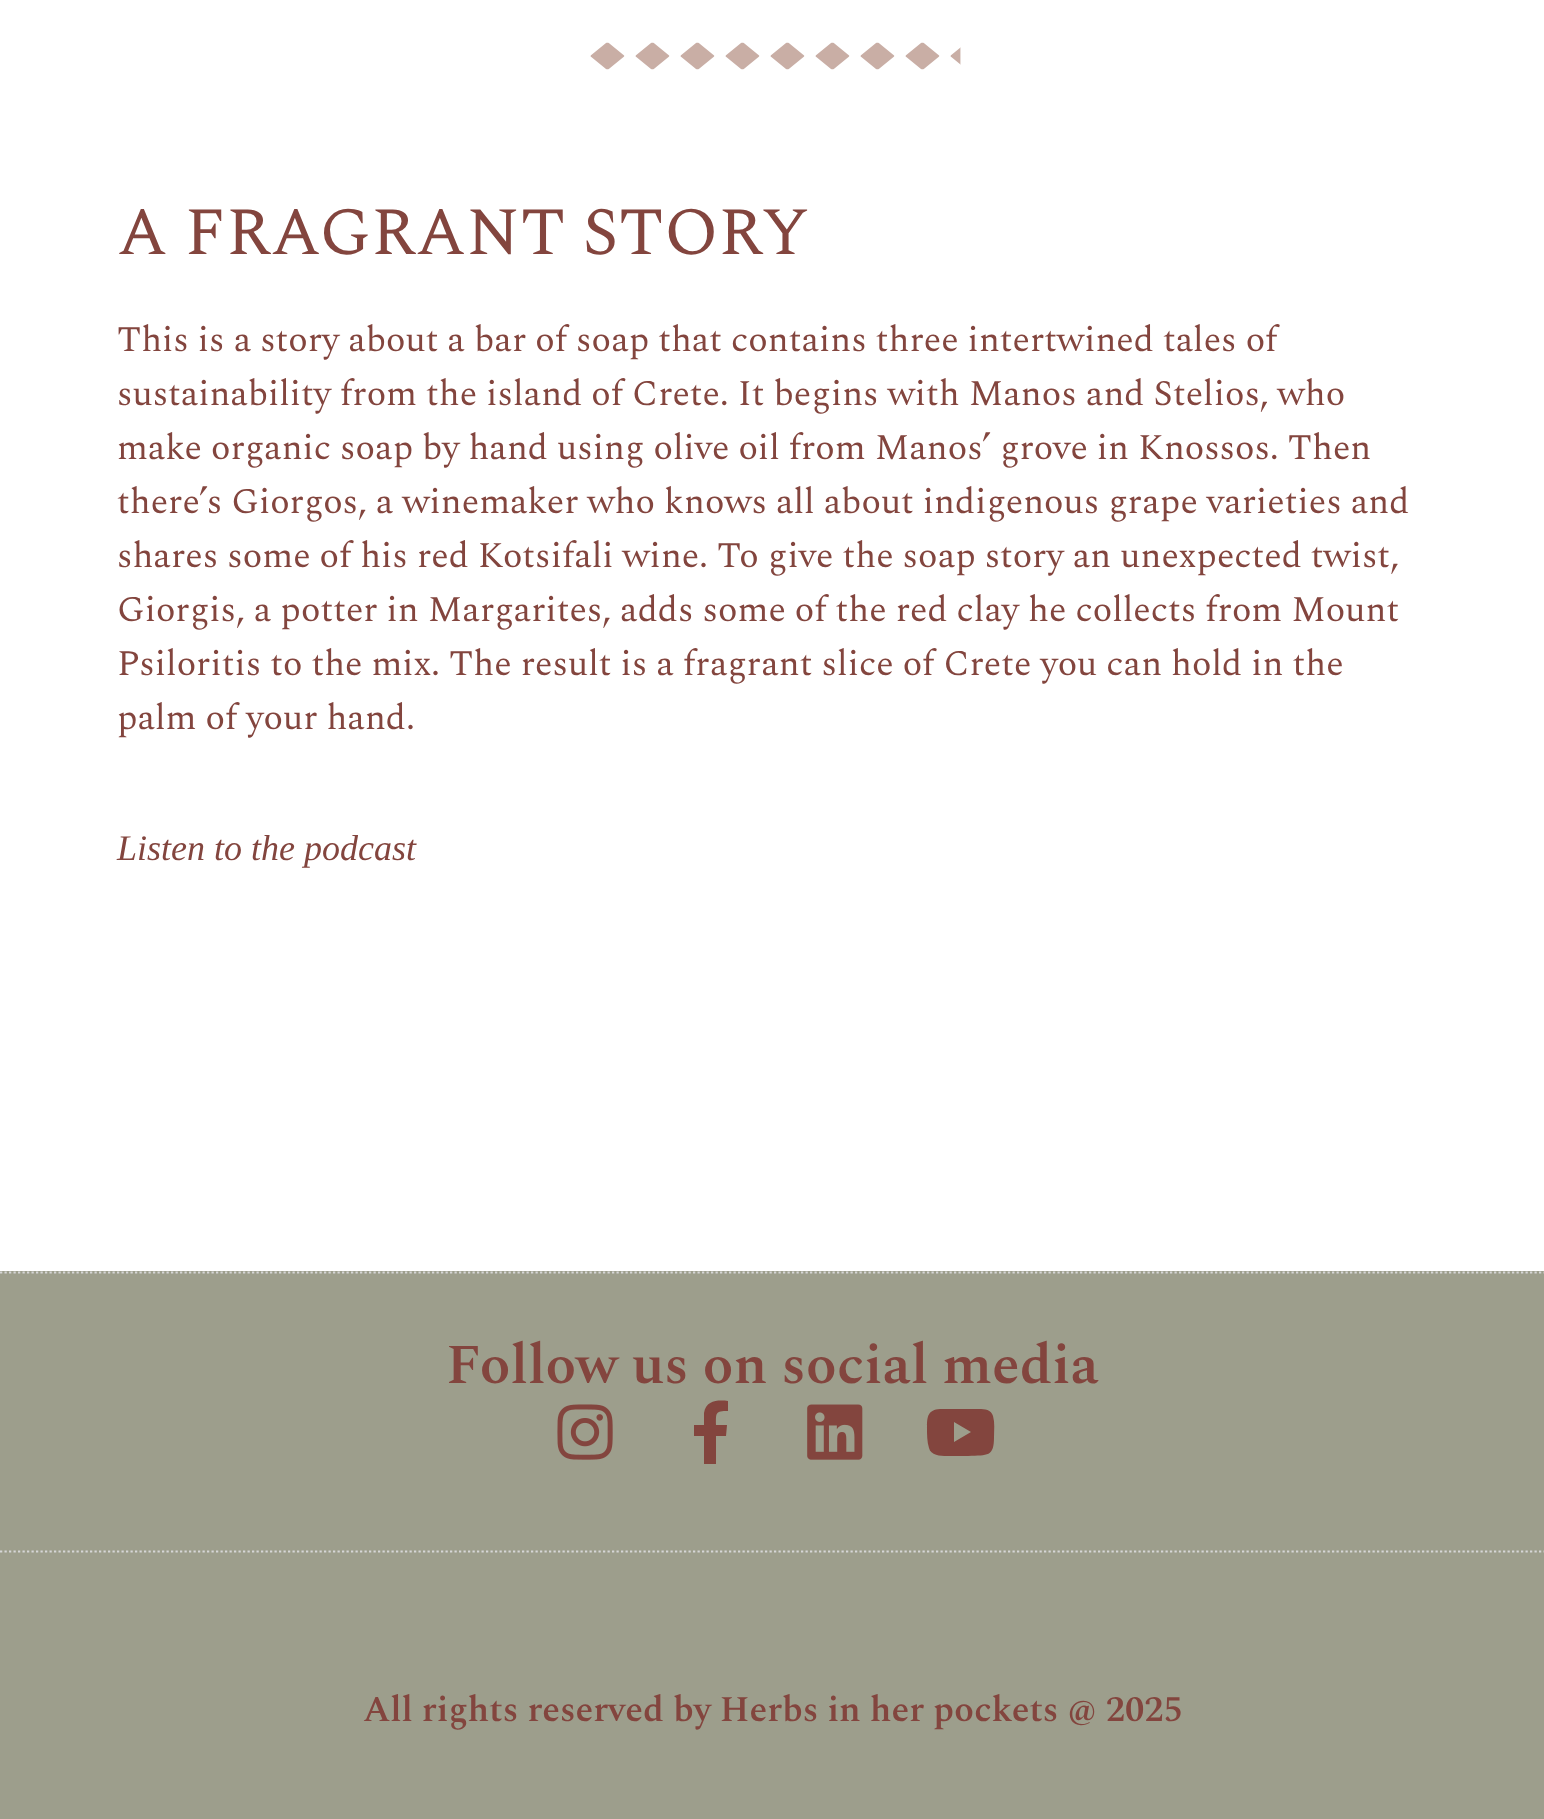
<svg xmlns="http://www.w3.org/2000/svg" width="1544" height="1819">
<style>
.a{font:67.5px Spectral;fill:#83453e}
.b{font:36px Spectral;fill:#83453e}
.c{font:italic 36px Liberation Serif;fill:#83453e}
.d{font:600 56.25px Spectral;fill:#83453e}
.e{font:600 36px Spectral;fill:#83453e}
</style>
<rect width="100%" height="100%" fill="#fff"/>
<image href="1.png" x="590" y="42" width="371" height="28"/>
<path fill="#9d9e8c" d="M0 1271h1544v548H0z"/>
<path fill="none" stroke="#d6d6d6" stroke-width="2.2" stroke-dasharray="2.25 2.25" d="M0 1272.5h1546"/>
<image href="2.png" x="557" y="1404" width="56" height="56"/>
<path fill="#83453e" d="M726 1436h-10v28h-12v-28h-10v-11h10v-12c2-13 14-13 24-12v10c-13 0-12 2-12 14h11z"/>
<image href="3.png" x="807" y="1404" width="56" height="56"/>
<path fill="#83453e" d="M993 1416c2 7 1 14 1 21c0 20-6 18-26 19h-17c-6 0-20 1-22-8c-2-6-2-14-2-20c0-12 1-18 13-19h15h20c6 0 16-1 18 7zm-39 26l17-10l-17-10z"/>
<path fill="none" stroke="#d6d6d6" stroke-width="2.2" stroke-dasharray="2.25 2.25" d="M0 1551.5h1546"/>
<text class="a" x="117" y="254">A FRAGRANT STORY</text>
<text class="b" x="117" y="351">This is a story about a bar of soap that contains three intertwined tales of</text>
<text class="b" x="117" y="405">sustainability from the island of Crete. It begins with Manos and Stelios, who</text>
<text class="b" x="117" y="459">make organic soap by hand using olive oil from Manos’ grove in Knossos. Then</text>
<text class="b" x="117" y="513">there’s Giorgos, a winemaker who knows all about indigenous grape varieties and</text>
<text class="b" x="117" y="567">shares some of his red Kotsifali wine. To give the soap story an unexpected twist,</text>
<text class="b" x="117" y="621">Giorgis, a potter in Margarites, adds some of the red clay he collects from Mount</text>
<text class="b" x="117" y="675">Psiloritis to the mix. The result is a fragrant slice of Crete you can hold in the</text>
<text class="b" x="117" y="729">palm of your hand.</text>
<text class="c" x="117" y="860">Listen to the podcast</text>
<text class="d" x="446" y="1383">Follow us on social media</text>
<text class="e" x="363" y="1721">All rights reserved by Herbs in her pockets @ 2025</text>
</svg>
